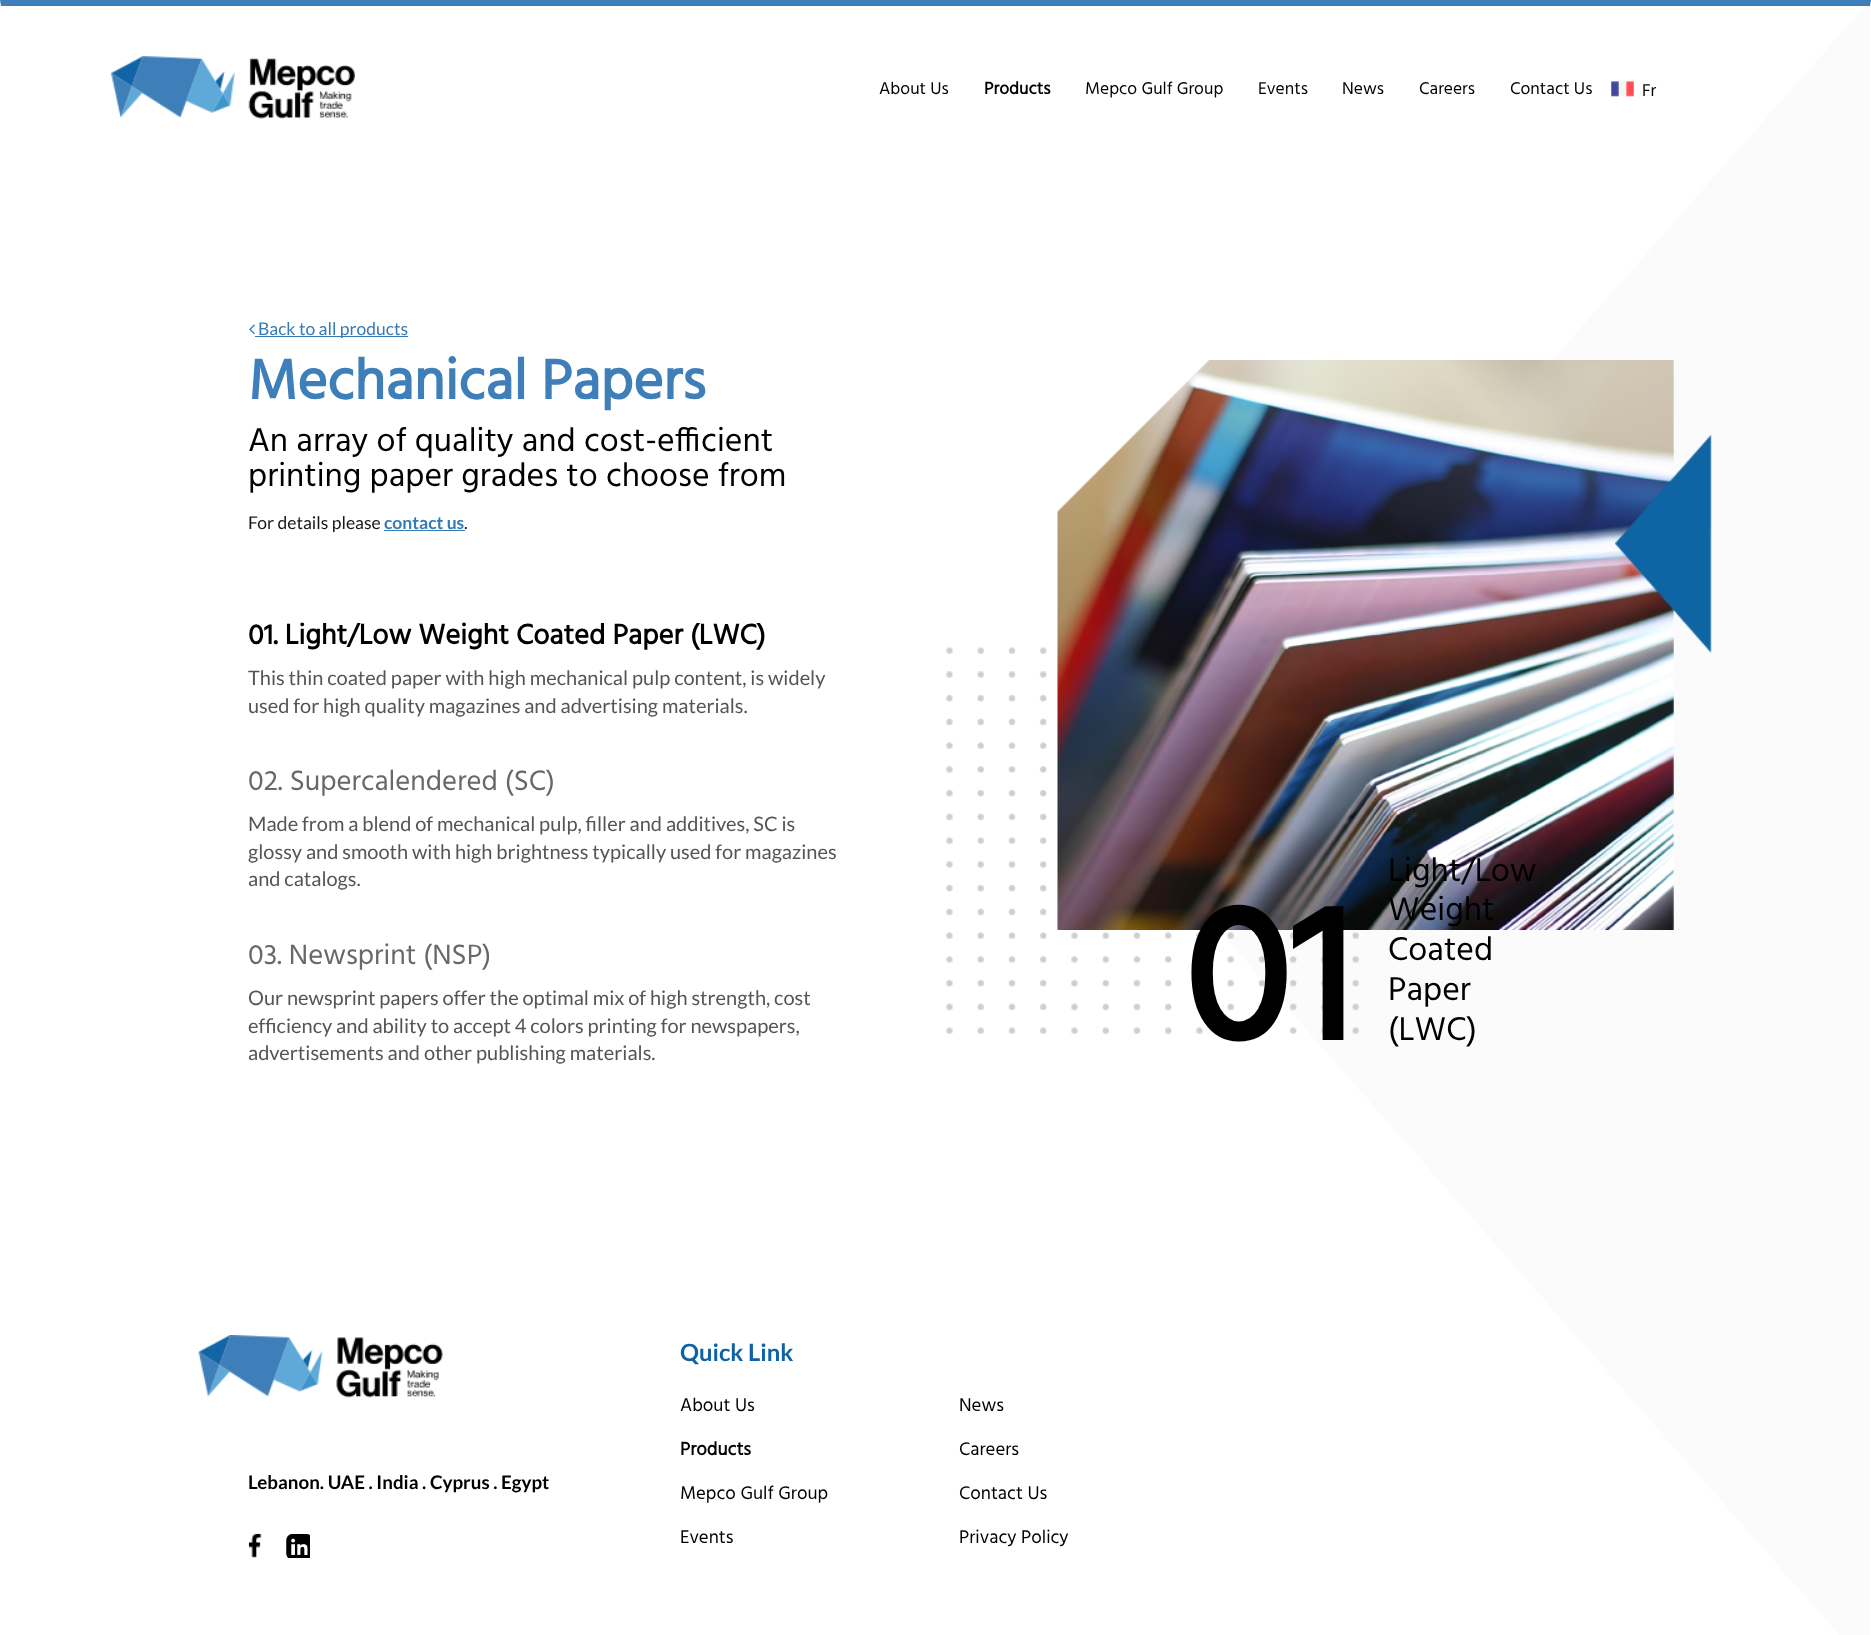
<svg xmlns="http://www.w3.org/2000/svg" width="1871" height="1635">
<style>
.a{font:17.5px Hind;fill:#000}
.b{font:bold 17.5px Hind;fill:#000}
.c{font:17.5px Lato;fill:#337ab7}
.d{font:bold 57.5px Hind;fill:#3f7fb9}
.e{font:33.75px Hind;fill:#000}
.f{font:17.5px Lato;fill:#191617}
.g{font:bold 17.5px Lato;fill:#337ab7}
.h{font:bold 28.75px Hind;fill:#000}
.i{font:20px Lato;fill:#555}
.j{font:28.75px Hind;fill:#686868}
.k{font:bold 196px Hind;fill:#000}
.l{font:bold 18.75px Lato;fill:#000}
.m{font:bold 23.75px Lato;fill:#0e62a5}
.n{font:18.75px Hind;fill:#000}
.o{font:bold 18.75px Hind;fill:#000}
</style>
<rect width="100%" height="100%" fill="#fff"/>
<image href="1.png" x="1218" y="6" width="652" height="1629"/>
<path fill="#3f7fb9" d="M0 0h1871l-1 6h-1869z"/>
<image href="2.png" x="111" y="56" width="244" height="63"/>
<image href="3.png" x="1611" y="81" width="23" height="16"/>
<image href="4.png" x="249" y="324" width="6" height="11"/>
<path fill="#337ab7" d="M255 336h153v1H255z"/>
<path fill="#337ab7" d="M384 530h81v1H384z"/>
<image href="7.png" x="946" y="647" width="413" height="387"/>
<image href="5.png" x="1057" y="360" width="617" height="570"/>
<image href="6.png" x="1615" y="435" width="97" height="218"/>
<image href="8.png" x="198" y="1335" width="245" height="63"/>
<image href="9.png" x="248" y="1533" width="14" height="25"/>
<image href="10.png" x="286" y="1534" width="24" height="24"/>
<text class="a" x="879" y="94">About Us</text>
<text class="b" x="984" y="94">Products</text>
<text class="a" x="1085" y="94">Mepco Gulf Group</text>
<text class="a" x="1258" y="94">Events</text>
<text class="a" x="1342" y="94">News</text>
<text class="a" x="1419" y="94">Careers</text>
<text class="a" x="1510" y="94">Contact Us</text>
<text class="a" x="1642" y="96">Fr</text>
<text class="c" x="258" y="335">Back to all products</text>
<text class="d" x="248" y="399">Mechanical Papers</text>
<text class="e" x="248" y="451">An array of quality and cost-efficient</text>
<text class="e" x="248" y="486">printing paper grades to choose from</text>
<text class="f" x="248" y="529">For details please</text>
<text class="g" x="384" y="529">contact us</text>
<text class="f" x="464" y="529">.</text>
<text class="h" x="248" y="644">01. Light/Low Weight Coated Paper (LWC)</text>
<text class="i" x="248" y="685">This thin coated paper with high mechanical pulp content, is widely</text>
<text class="i" x="248" y="713">used for high quality magazines and advertising materials.</text>
<text class="j" x="248" y="790">02. Supercalendered (SC)</text>
<text class="i" x="248" y="831">Made from a blend of mechanical pulp, filler and additives, SC is</text>
<text class="i" x="248" y="859">glossy and smooth with high brightness typically used for magazines</text>
<text class="i" x="248" y="886">and catalogs.</text>
<text class="j" x="248" y="964">03. Newsprint (NSP)</text>
<text class="i" x="248" y="1005">Our newsprint papers offer the optimal mix of high strength, cost</text>
<text class="i" x="248" y="1033">efficiency and ability to accept 4 colors printing for newspapers,</text>
<text class="i" x="248" y="1060">advertisements and other publishing materials.</text>
<text class="k" x="1183" y="1040">01</text>
<text class="e" x="1388" y="881">Light/Low</text>
<text class="e" x="1388" y="920">Weight</text>
<text class="e" x="1388" y="960">Coated</text>
<text class="e" x="1388" y="1000">Paper</text>
<text class="e" x="1388" y="1040">(LWC)</text>
<text class="l" x="248" y="1489">Lebanon. UAE . India . Cyprus . Egypt</text>
<text class="m" x="680" y="1361">Quick Link</text>
<text class="n" x="680" y="1411">About Us</text>
<text class="o" x="680" y="1455">Products</text>
<text class="n" x="680" y="1499">Mepco Gulf Group</text>
<text class="n" x="680" y="1543">Events</text>
<text class="n" x="959" y="1411">News</text>
<text class="n" x="959" y="1455">Careers</text>
<text class="n" x="959" y="1499">Contact Us</text>
<text class="n" x="959" y="1543">Privacy Policy</text>
</svg>
